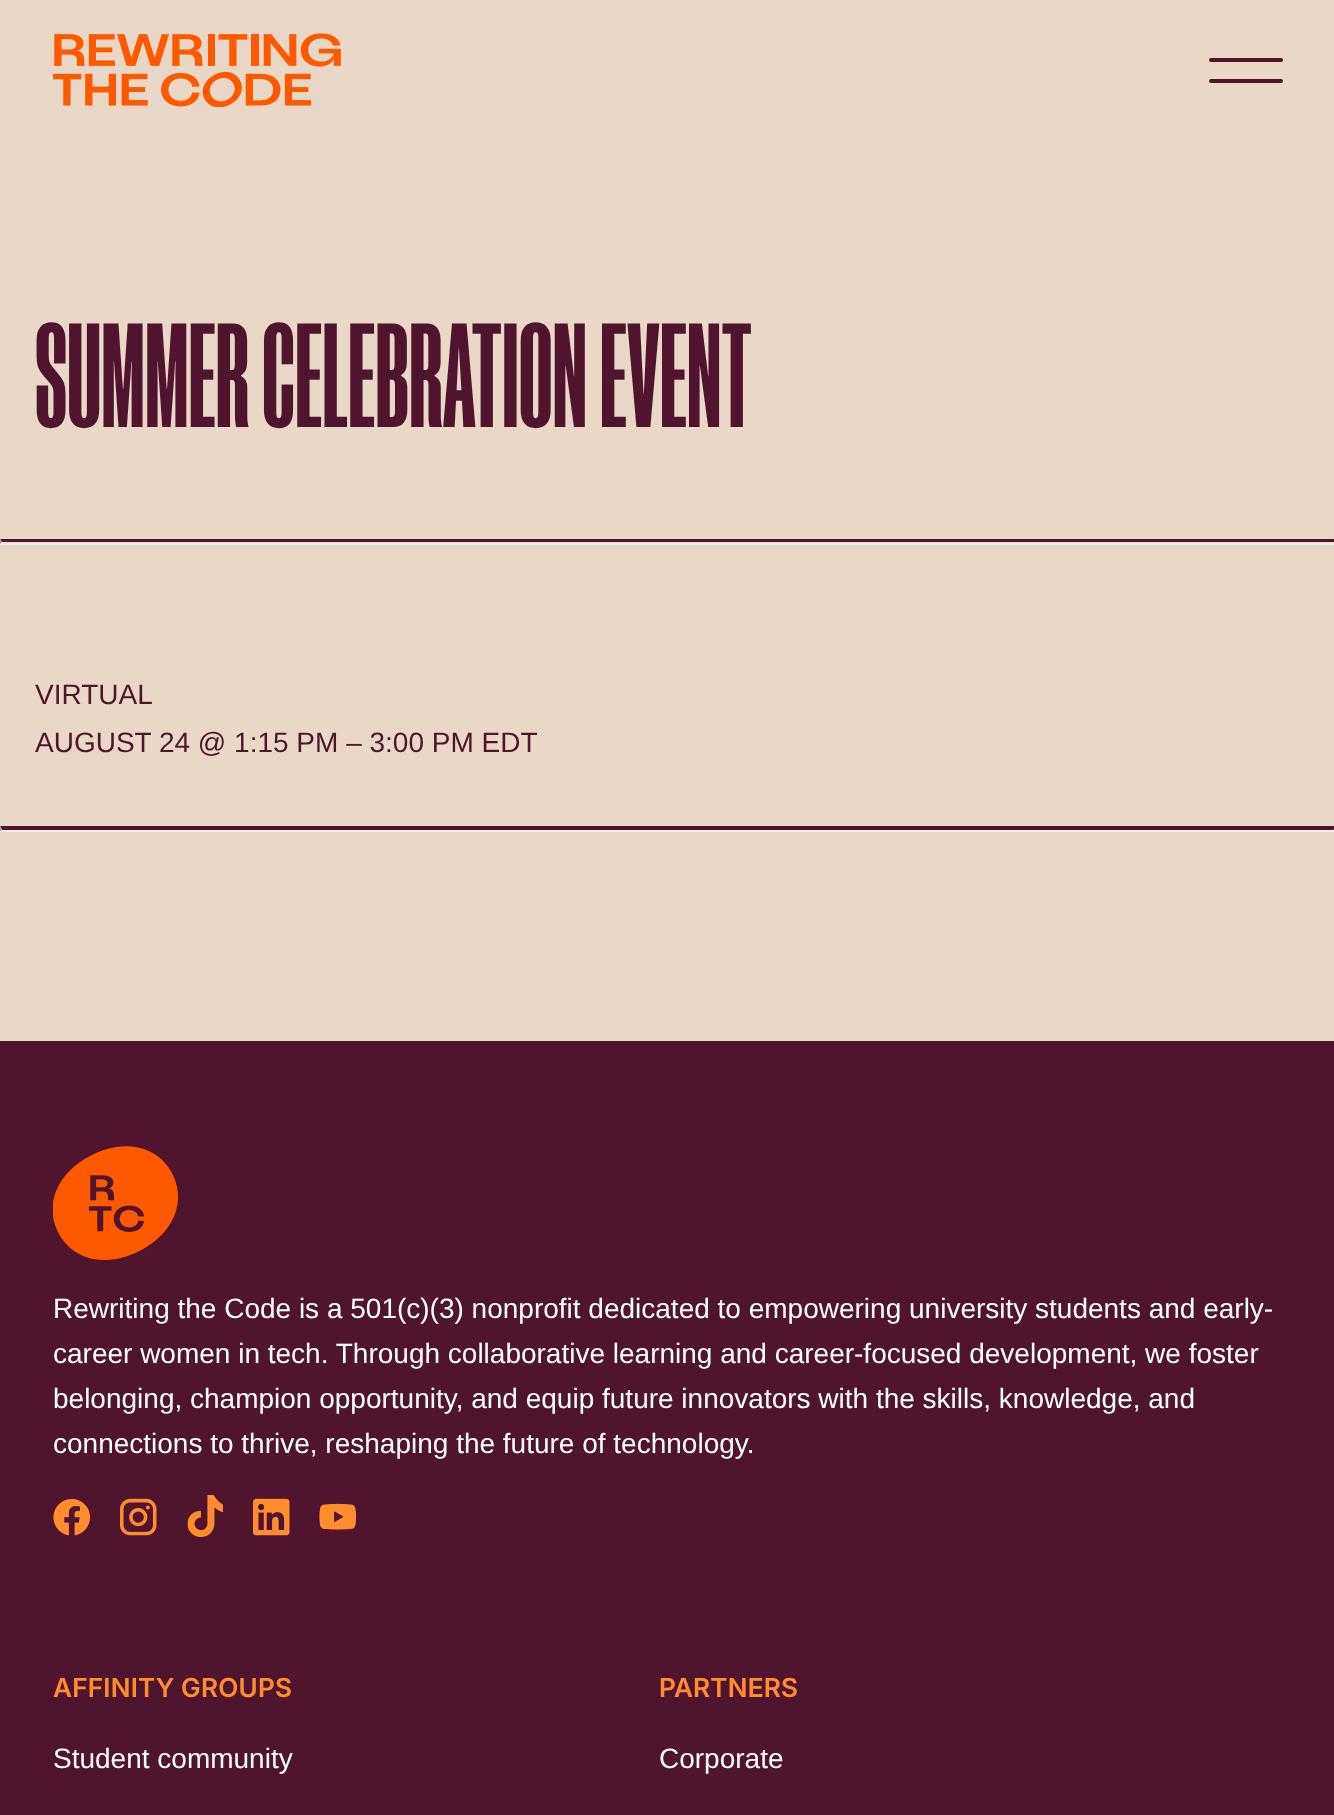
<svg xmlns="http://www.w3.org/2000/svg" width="1334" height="1815">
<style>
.a{font:bold 140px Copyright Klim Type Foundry;fill:#50142f}
.b{font:28px Liberation Sans;fill:#50142f}
.c{font:28px Liberation Sans;fill:#fff}
.d{font:600 26.25px Inter;letter-spacing:0.25px;fill:#ff8d2d}
</style>
<rect width="100%" height="100%" fill="#e9d8c8"/>
<image href="1.png" x="53" y="33" width="288" height="74"/>
<rect fill="#50142f" x="1209" y="58" width="74" height="4" rx="2"/>
<rect fill="#50142f" x="1209" y="79" width="74" height="4" rx="2"/>
<path fill="#50142f" d="M0 539h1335l-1 3h-1332z"/>
<path fill="#eee" d="M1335 539v5l-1.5-1.5z"/>
<path fill="#eee" d="M0 543h1334v2H0z"/>
<path fill="#9f9f9f" d="M0 544v-5l2 3.5z"/>
<path fill="#50142f" d="M0 826h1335l-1 4h-1332z"/>
<path fill="#eee" d="M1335 826v5l-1.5-1.5z"/>
<path fill="#eee" d="M0 830h1334v2H0z"/>
<path fill="#9f9f9f" d="M0 831v-5l2 3.5z"/>
<path fill="#50142f" d="M0 1041h1334v774H0z"/>
<image href="2.png" x="53" y="1146" width="126" height="114"/>
<image href="3.png" x="53" y="1499" width="38" height="37"/>
<image href="4.png" x="120" y="1498" width="37" height="38"/>
<image href="5.png" x="187" y="1495" width="36" height="42"/>
<image href="6.png" x="253" y="1498" width="37" height="38"/>
<image href="7.png" x="319" y="1503" width="38" height="27"/>
<text class="a" x="35" y="427">SUMMER CELEBRATION EVENT</text>
<text class="b" x="35" y="704">VIRTUAL</text>
<text class="b" x="35" y="752">AUGUST 24 @ 1:15 PM – 3:00 PM EDT</text>
<text class="c" x="53" y="1318">Rewriting the Code is a 501(c)(3) nonprofit dedicated to empowering university students and early-</text>
<text class="c" x="53" y="1363">career women in tech. Through collaborative learning and career-focused development, we foster</text>
<text class="c" x="53" y="1408">belonging, champion opportunity, and equip future innovators with the skills, knowledge, and</text>
<text class="c" x="53" y="1453">connections to thrive, reshaping the future of technology.</text>
<text class="d" x="53" y="1697">AFFINITY GROUPS</text>
<text class="c" x="53" y="1768">Student community</text>
<text class="d" x="659" y="1697">PARTNERS</text>
<text class="c" x="659" y="1768">Corporate</text>
</svg>
